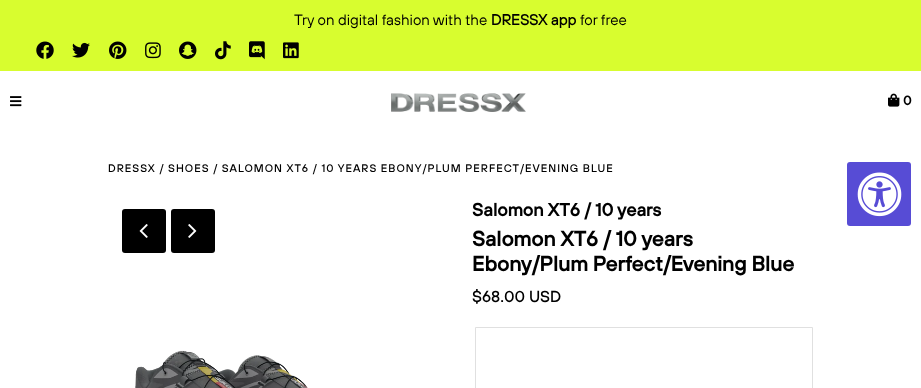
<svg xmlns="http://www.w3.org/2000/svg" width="921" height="388">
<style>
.a{font:15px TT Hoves;fill:#000}
.b{font:bold 15px TT Hoves;fill:#000}
.c{font:bold 13px 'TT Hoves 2';fill:#000}
.d{font:500 11px TT Hoves;letter-spacing:1px;fill:#000}
.e{font:bold 18px 'TT Hoves 2';fill:#000}
.f{font:bold 21px 'TT Hoves 2';fill:#000}
.g{font:500 16px TT Hoves;fill:#000}
</style>
<rect width="100%" height="100%" fill="#fff"/>
<path fill="#d8fd2f" d="M0 0h921v71H0z"/>
<image href="1.png" x="36" y="41" width="18" height="18"/>
<image href="2.png" x="72" y="42" width="18" height="16"/>
<image href="3.png" x="109" y="41" width="18" height="18"/>
<image href="4.png" x="145" y="42" width="16" height="17"/>
<image href="5.png" x="179" y="41" width="18" height="18"/>
<image href="6.png" x="215" y="41" width="16" height="19"/>
<image href="7.png" x="249" y="41" width="16" height="19"/>
<image href="8.png" x="283" y="42" width="16" height="17"/>
<image href="9.png" x="10" y="96" width="12" height="11"/>
<image href="10.png" x="391" y="93" width="135" height="19"/>
<image href="11.png" x="888" y="93" width="12" height="14"/>
<rect fill="#000" x="122" y="209" width="44" height="44" rx="3"/>
<image href="12.png" x="139" y="224" width="9" height="14"/>
<rect fill="#000" x="171" y="209" width="44" height="44" rx="3"/>
<image href="13.png" x="188" y="224" width="9" height="14"/>
<image href="14.png" x="135" y="350" width="173" height="38"/>
<path fill="none" stroke="#e0e0e0" d="M475.5 327.5h337v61H475.5z"/>
<rect fill="#574cd5" x="847" y="162" width="64" height="64" rx="3"/>
<image href="15.png" x="857" y="172" width="45" height="45"/>
<text class="a" x="294" y="25">Try on digital fashion with the</text>
<text class="b" x="491" y="25">DRESSX app</text>
<text class="a" x="580" y="25">for free</text>
<text class="c" x="903" y="105">0</text>
<text class="d" x="108" y="172">DRESSX / SHOES / SALOMON XT6 / 10 YEARS EBONY/PLUM PERFECT/EVENING BLUE</text>
<text class="e" x="472" y="216">Salomon XT6 / 10 years</text>
<text class="f" x="472" y="246">Salomon XT6 / 10 years</text>
<text class="f" x="472" y="271">Ebony/Plum Perfect/Evening Blue</text>
<text class="g" x="472" y="302">$68.00 USD</text>
</svg>
